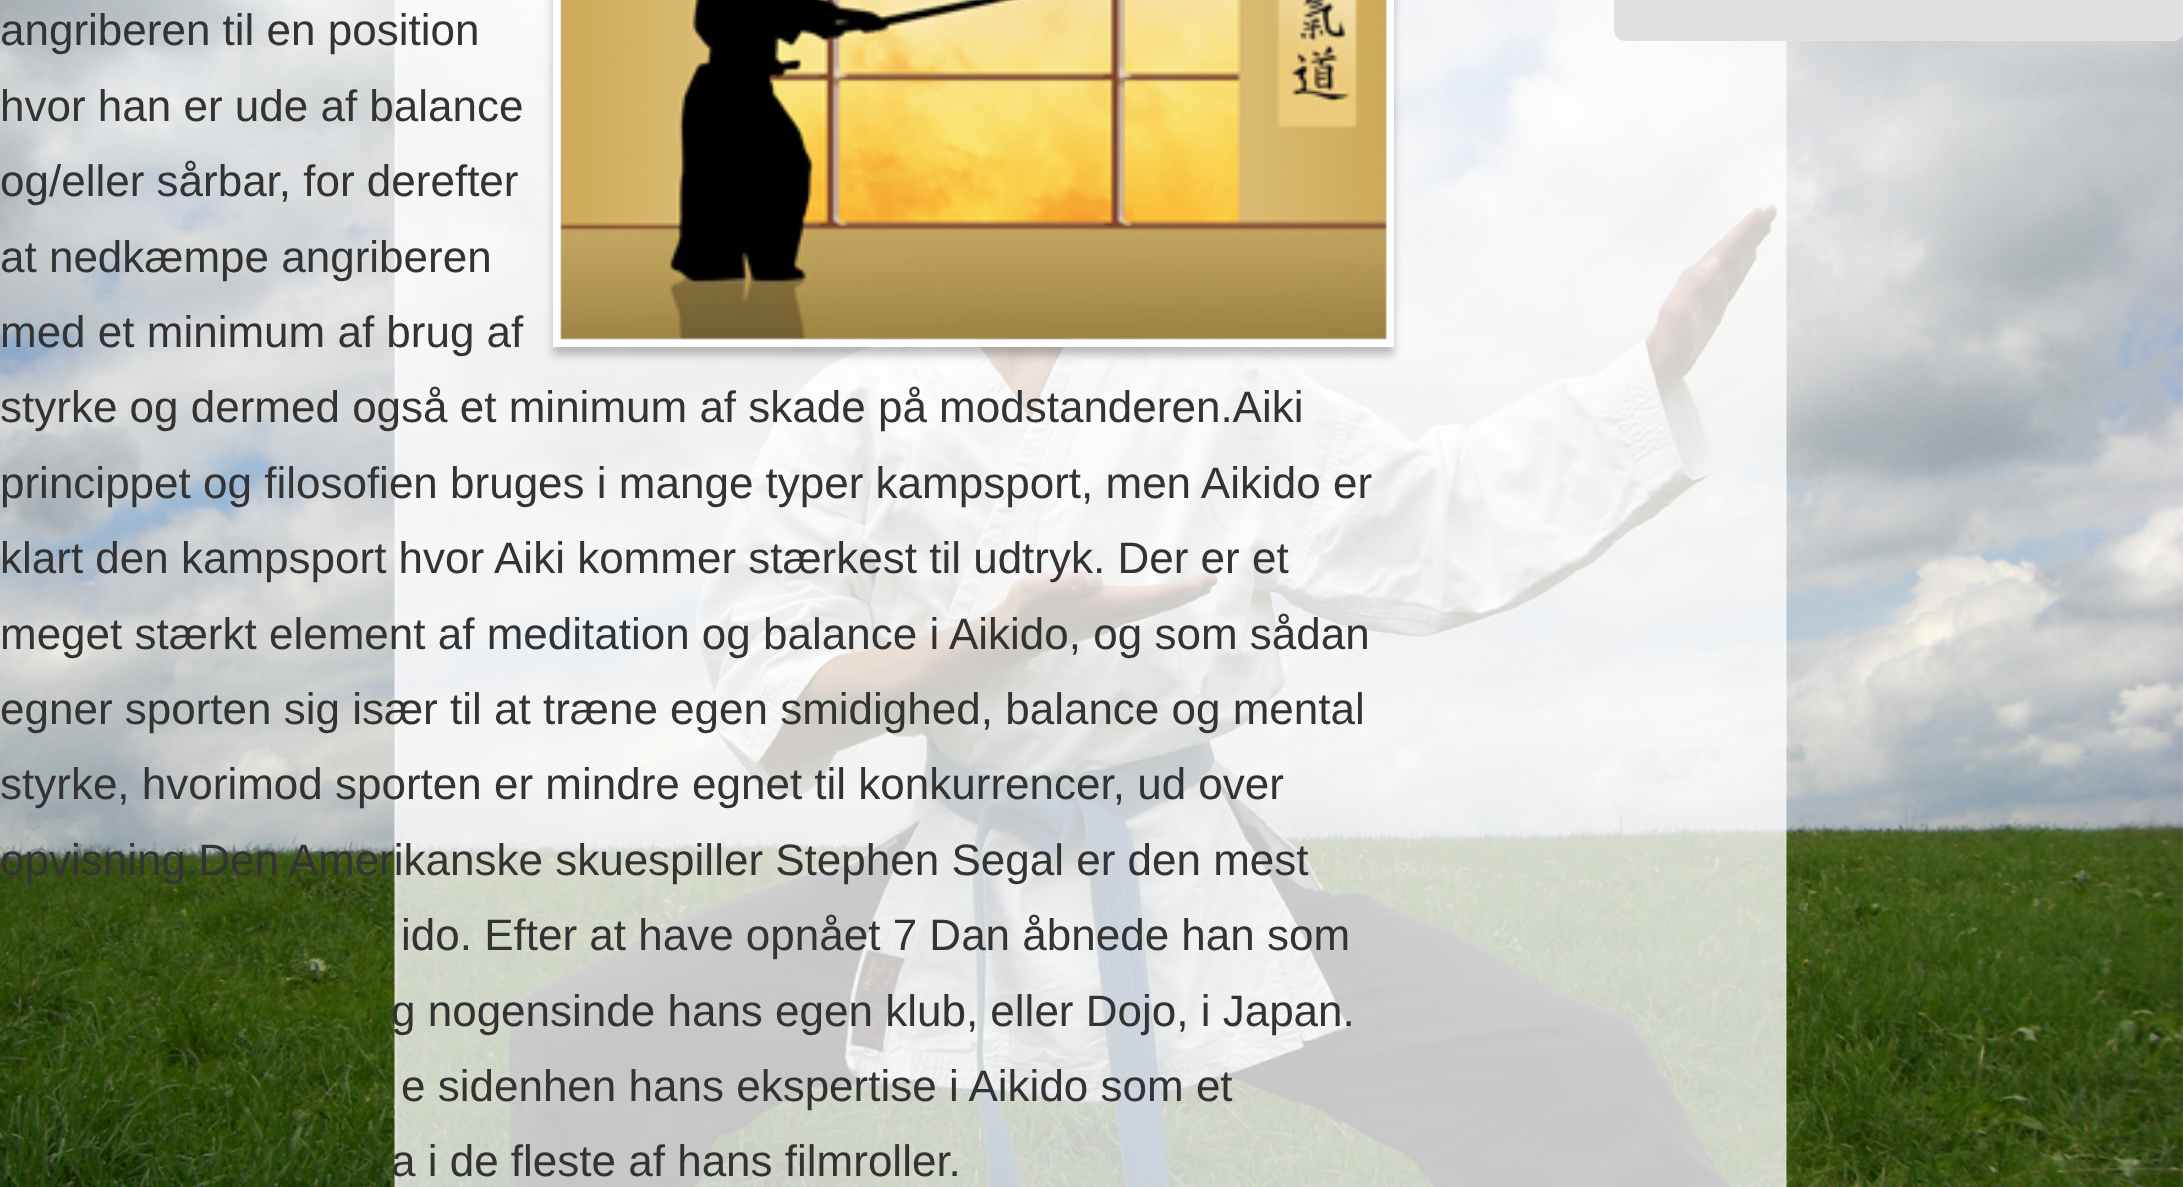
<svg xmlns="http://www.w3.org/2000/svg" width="2183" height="1187">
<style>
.a{font:44px Liberation Sans;fill:#333}
</style>
<rect width="100%" height="100%" fill="#fff"/>
<image href="1.png" x="0" y="0" width="2183" height="1187"/>
<path fill="#3333334d" filter="blur(4px)" d="M553 -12h841v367H553z"/>
<path fill="none" stroke="#fff" stroke-width="8" d="M557 -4h833v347H557z"/>
<image href="2.png" x="560" y="0" width="827" height="340"/>
<rect fill="#e2e2e2" x="1614" y="-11" width="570" height="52" rx="11"/>
<text class="a" x="0" y="45">angriberen til en position</text>
<text class="a" x="0" y="121">hvor han er ude af balance</text>
<text class="a" x="0" y="196">og/eller sårbar, for derefter</text>
<text class="a" x="0" y="272">at nedkæmpe angriberen</text>
<text class="a" x="0" y="347">med et minimum af brug af</text>
<text class="a" x="0" y="422">styrke og dermed også et minimum af skade på modstanderen.Aiki</text>
<text class="a" x="0" y="498">princippet og filosofien bruges i mange typer kampsport, men Aikido er</text>
<text class="a" x="0" y="573">klart den kampsport hvor Aiki kommer stærkest til udtryk. Der er et</text>
<text class="a" x="0" y="649">meget stærkt element af meditation og balance i Aikido, og som sådan</text>
<text class="a" x="0" y="724">egner sporten sig især til at træne egen smidighed, balance og mental</text>
<text class="a" x="0" y="799">styrke, hvorimod sporten er mindre egnet til konkurrencer, ud over</text>
<text class="a" x="0" y="875">opvisning.Den Amerikanske skuespiller Stephen Segal er den mest</text>
<text class="a" x="401" y="950">ido. Efter at have opnået 7 Dan åbnede han som</text>
<text class="a" x="391" y="1026">g nogensinde hans egen klub, eller Dojo, i Japan.</text>
<text class="a" x="401" y="1101">e sidenhen hans ekspertise i Aikido som et</text>
<text class="a" x="391" y="1176">a i de fleste af hans filmroller.</text>
</svg>
